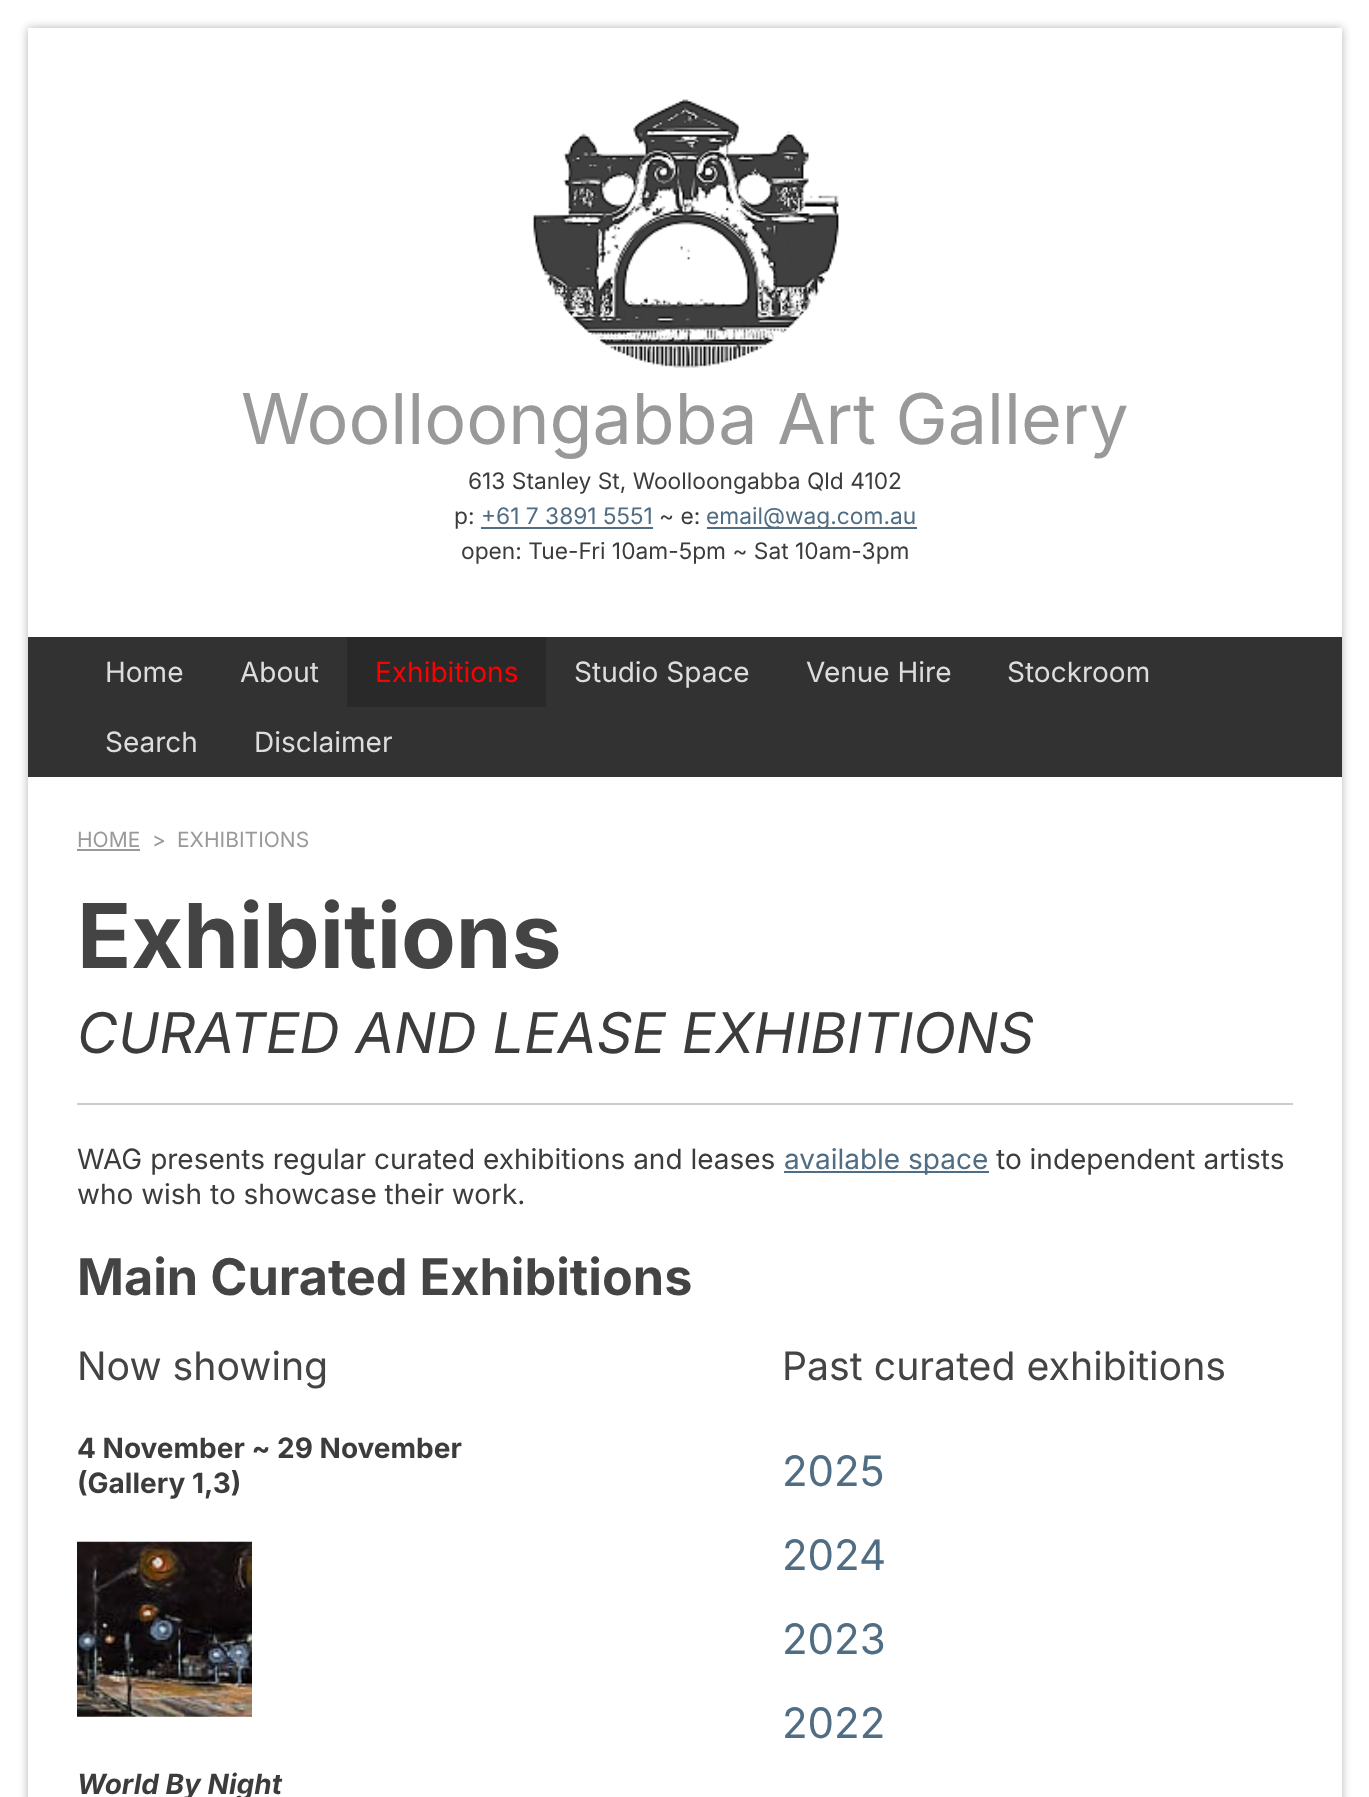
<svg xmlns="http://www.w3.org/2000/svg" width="1369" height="1797">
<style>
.a{font:70px Inter;fill:#999}
.b{font:22.75px Inter;fill:#3c3c3d}
.c{font:22.75px Inter;fill:#506d83}
.d{font:28px Inter;fill:#ddd}
.e{font:28px Inter;fill:#f00}
.f{font:21px Inter;fill:#999}
.g{font:bold 89.5px Inter;fill:#444}
.h{font:italic 56px Inter;fill:#3c3c3d}
.i{font:28px Inter;fill:#3c3c3d}
.j{font:28px Inter;fill:#506d83}
.k{font:bold 50.4px Inter;fill:#444}
.l{font:39.25px Inter;fill:#444}
.m{font:bold 28px Inter;fill:#3c3c3d}
.n{font:italic bold 28px Inter;fill:#3c3c3d}
.o{font:42px Inter;fill:#506d83}
</style>
<defs>
<clipPath id="clip1"><path d="M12 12h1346v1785h-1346zm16 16h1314v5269h-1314z" clip-rule="evenodd"/></clipPath>
</defs>
<rect width="100%" height="100%" fill="#fff"/>
<g clip-path="url(#clip1)">
<path fill="#0000004d" filter="blur(5px)" d="M28 28h1314v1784H28z"/>
</g>
<image href="1.png" x="533" y="99" width="306" height="269"/>
<path fill="#506d83" d="M481 527h172v2H481z"/>
<path fill="#506d83" d="M707 527h210v2H707z"/>
<path fill="#323232" d="M28 637h1314v140H28z"/>
<path fill="#292929" d="M347 637h199v70H347z"/>
<path fill="#ccc" d="M77 1103h1216v2H77z"/>
<path fill="#999" d="M77 849h63v2H77z"/>
<path fill="#506d83" d="M784 1171h205v2H784z"/>
<image href="2.png" x="77" y="1541" width="175" height="176"/>
<text class="a" x="241" y="444">Woolloongabba Art Gallery</text>
<text class="b" x="468" y="489">613 Stanley St, Woolloongabba Qld 4102</text>
<text class="b" x="454" y="524">p:</text>
<text class="c" x="481" y="524">+61 7 3891 5551</text>
<text class="b" x="659" y="524">~ e:</text>
<text class="c" x="706" y="524">email@wag.com.au</text>
<text class="b" x="461" y="559">open: Tue-Fri 10am-5pm ~ Sat 10am-3pm</text>
<text class="d" x="105" y="682">Home</text>
<text class="d" x="240" y="682">About</text>
<text class="e" x="375" y="682">Exhibitions</text>
<text class="d" x="574" y="682">Studio Space</text>
<text class="d" x="806" y="682">Venue Hire</text>
<text class="d" x="1007" y="682">Stockroom</text>
<text class="d" x="105" y="752">Search</text>
<text class="d" x="254" y="752">Disclaimer</text>
<text class="f" x="77" y="847">HOME</text>
<text class="f" x="152" y="847">&gt;</text>
<text class="f" x="177" y="847">EXHIBITIONS</text>
<text class="g" x="77" y="968">Exhibitions</text>
<text class="h" x="77" y="1053">CURATED AND LEASE EXHIBITIONS</text>
<text class="i" x="77" y="1169">WAG presents regular curated exhibitions and leases</text>
<text class="j" x="784" y="1169">available space</text>
<text class="i" x="996" y="1169">to independent artists</text>
<text class="i" x="77" y="1204">who wish to showcase their work.</text>
<text class="k" x="77" y="1295">Main Curated Exhibitions</text>
<text class="l" x="77" y="1380">Now showing</text>
<text class="m" x="77" y="1458">4 November ~ 29 November</text>
<text class="m" x="77" y="1493">(Gallery 1,3)</text>
<text class="n" x="77" y="1794">World By Night</text>
<text class="l" x="782" y="1380">Past curated exhibitions</text>
<text class="o" x="782" y="1486">2025</text>
<text class="o" x="782" y="1570">2024</text>
<text class="o" x="782" y="1654">2023</text>
<text class="o" x="782" y="1738">2022</text>
</svg>
